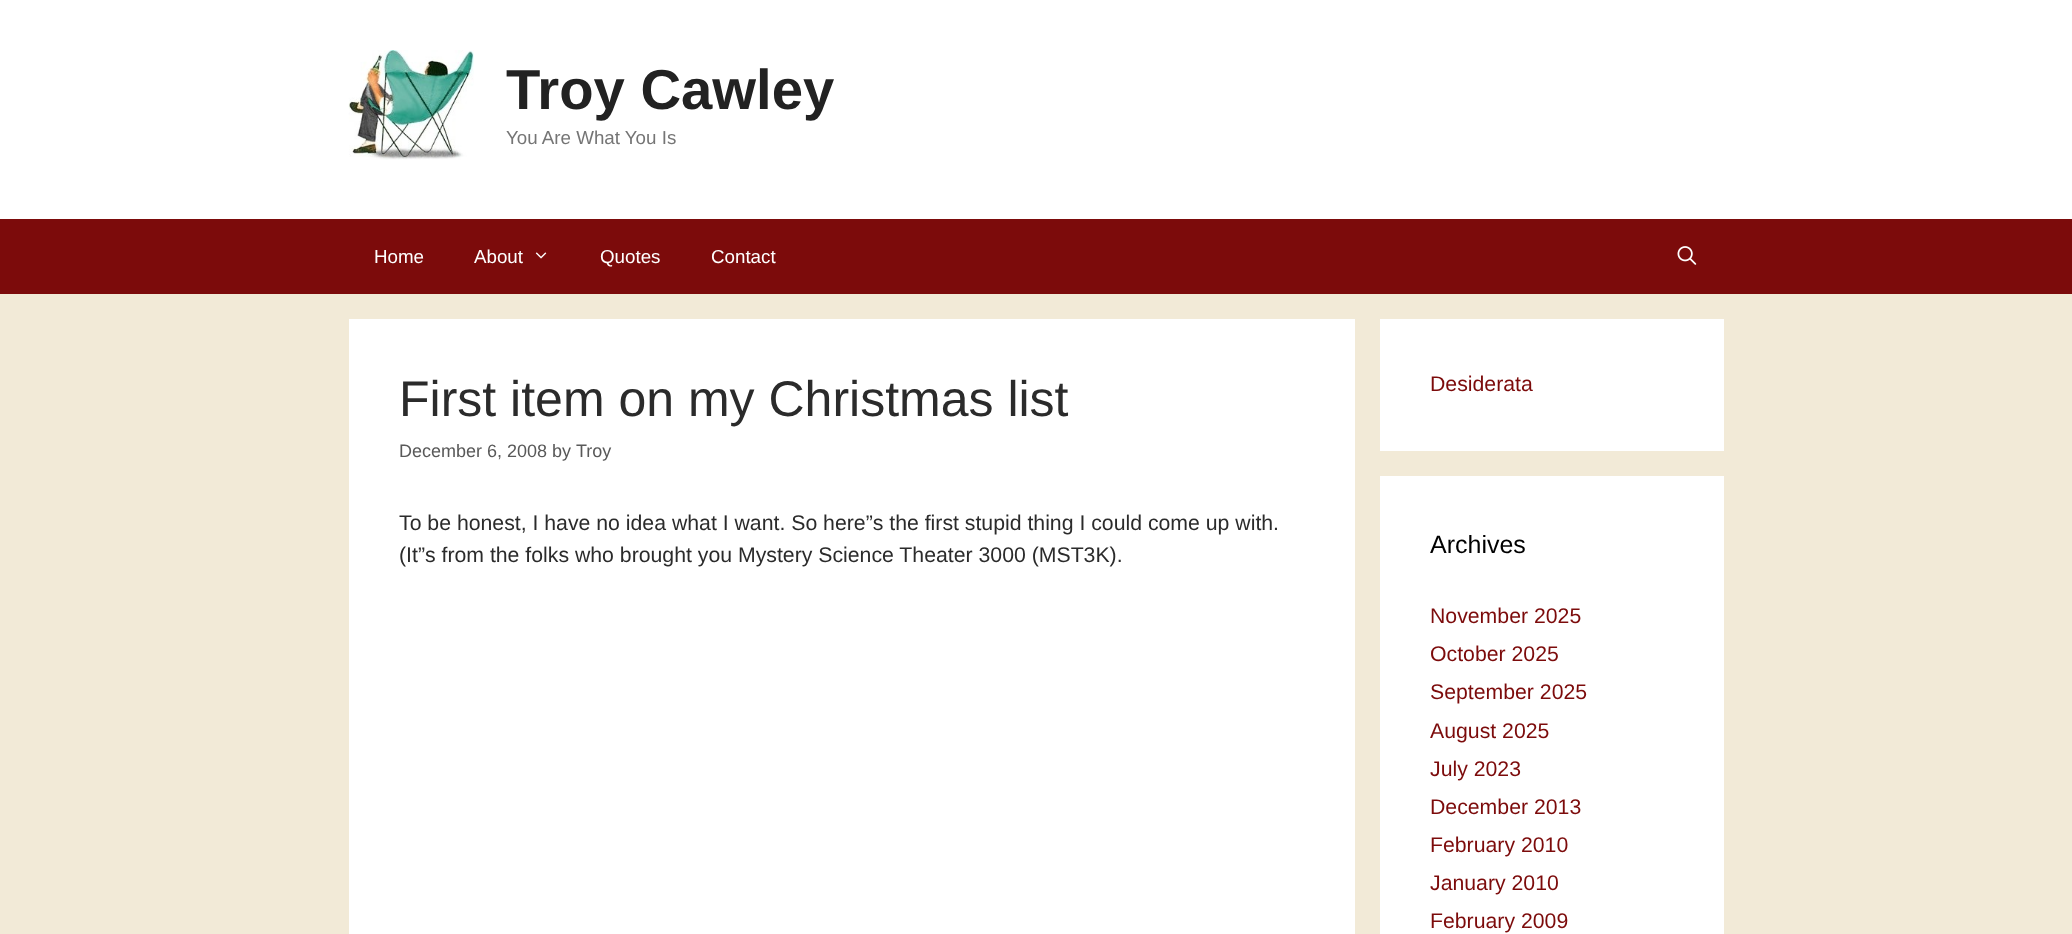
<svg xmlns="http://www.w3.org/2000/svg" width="2072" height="934">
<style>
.a{font:bold 56.25px Liberation Sans;fill:#222}
.b{font:18.75px Liberation Sans;fill:#757575}
.c{font:18.75px Liberation Sans;fill:#fff}
.d{font:50px Liberation Sans;fill:#2b2b2b}
.e{font:18px Liberation Sans;fill:#595959}
.f{font:21.25px Liberation Sans;fill:#2b2b2b}
.g{font:21.25px Liberation Sans;fill:#7c0b0b}
.h{font:25px Liberation Sans;fill:#000}
</style>
<rect width="100%" height="100%" fill="#f2ead7"/>
<path fill="#fff" d="M0 0h2072v219H0z"/>
<image href="1.png" x="348" y="50" width="126" height="110"/>
<path fill="#7c0b0b" d="M0 219h2072v75H0z"/>
<image href="2.png" x="535" y="252" width="12" height="7"/>
<image href="3.png" x="1677" y="246" width="20" height="19"/>
<path fill="#fff" d="M349 319h1006v615H349z"/>
<path fill="#fff" d="M1380 319h344v132H1380z"/>
<path fill="#fff" d="M1380 476h344v458H1380z"/>
<text class="a" x="506" y="109">Troy Cawley</text>
<text class="b" x="506" y="144">You Are What You Is</text>
<text class="c" x="374" y="263">Home</text>
<text class="c" x="474" y="263">About</text>
<text class="c" x="600" y="263">Quotes</text>
<text class="c" x="711" y="263">Contact</text>
<text class="d" x="399" y="416">First item on my Christmas list</text>
<text class="e" x="399" y="457">December 6, 2008 by</text>
<text class="e" x="576" y="457">Troy</text>
<text class="f" x="399" y="530">To be honest, I have no idea what I want. So here”s the first stupid thing I could come up with.</text>
<text class="f" x="399" y="562">(It”s from the folks who brought you Mystery Science Theater 3000 (MST3K).</text>
<text class="g" x="1430" y="391">Desiderata</text>
<text class="h" x="1430" y="553">Archives</text>
<text class="g" x="1430" y="623">November 2025</text>
<text class="g" x="1430" y="661">October 2025</text>
<text class="g" x="1430" y="699">September 2025</text>
<text class="g" x="1430" y="738">August 2025</text>
<text class="g" x="1430" y="776">July 2023</text>
<text class="g" x="1430" y="814">December 2013</text>
<text class="g" x="1430" y="852">February 2010</text>
<text class="g" x="1430" y="890">January 2010</text>
<text class="g" x="1430" y="928">February 2009</text>
</svg>
